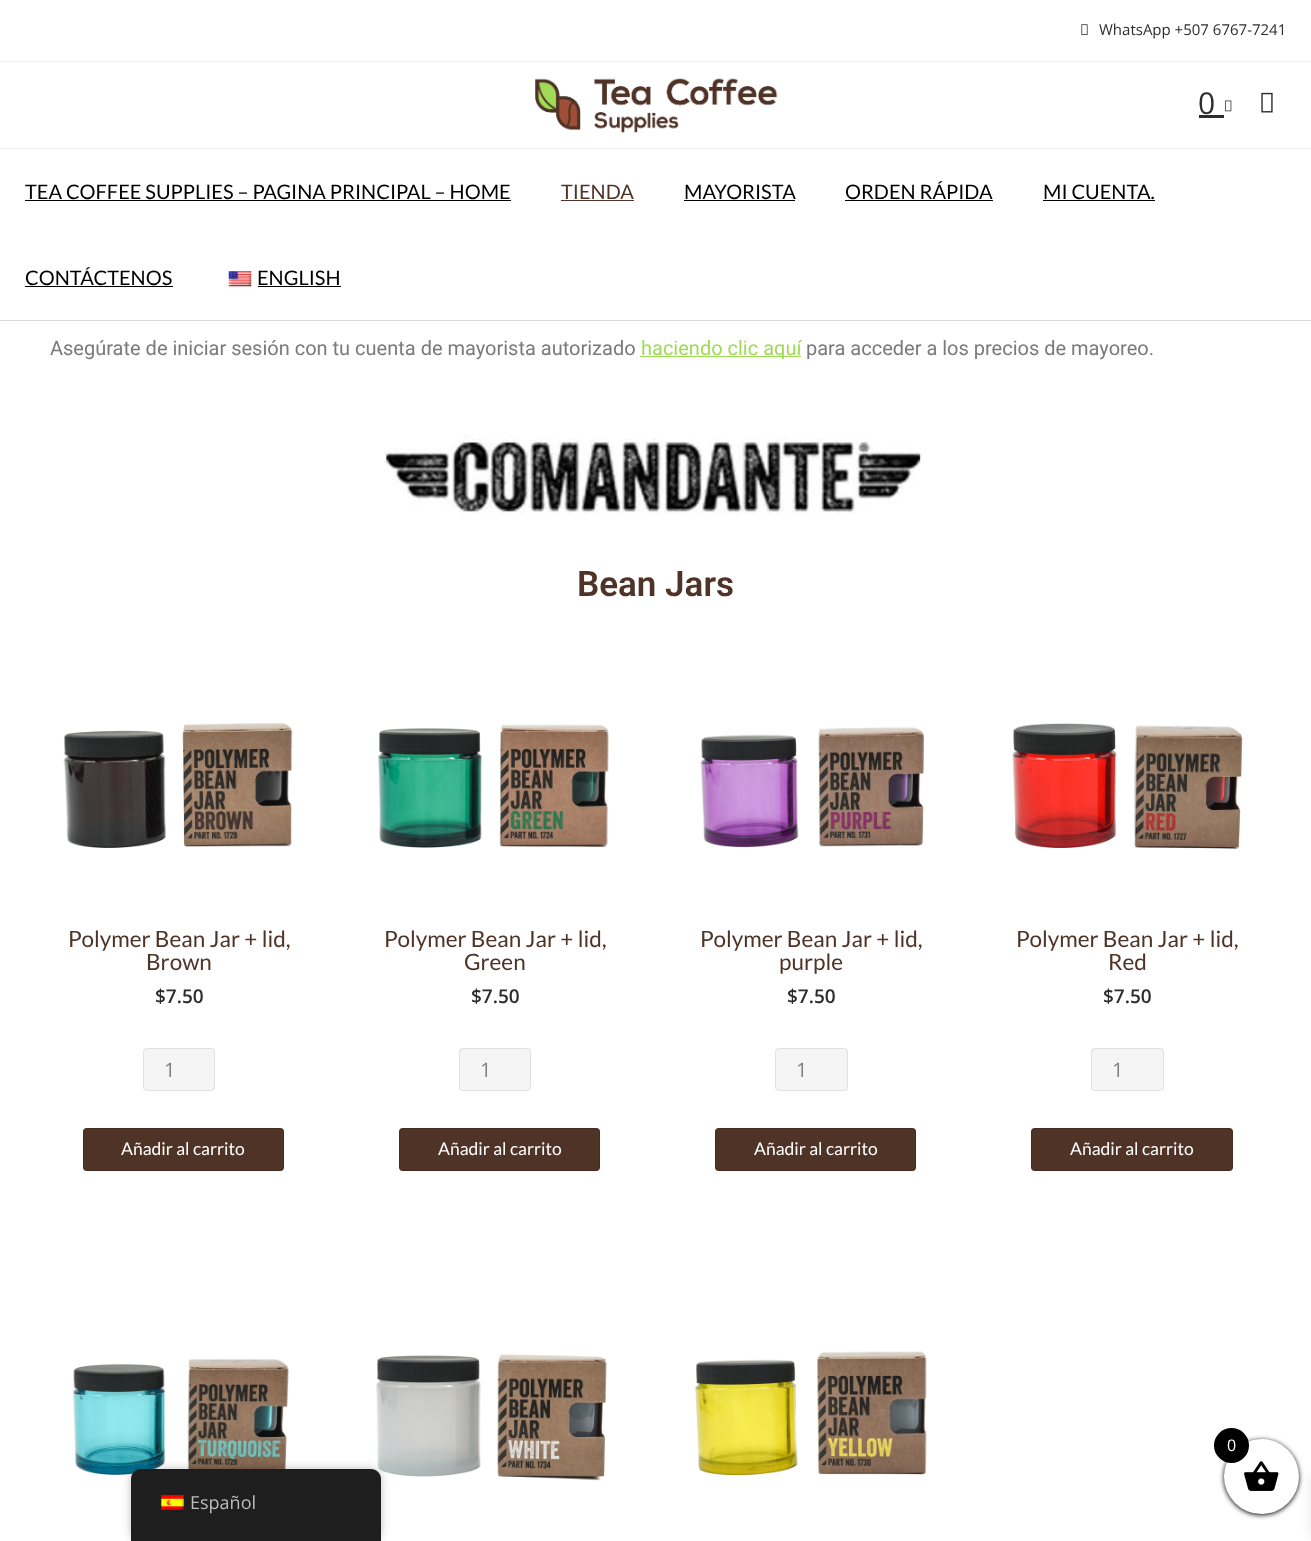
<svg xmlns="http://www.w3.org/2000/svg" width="1311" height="1541">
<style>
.a{font:15px Open Sans;fill:#2d2d2d}
.b{font:30px Open Sans;fill:#2d2d2d}
.c{font:20px Lato;fill:#000}
.d{font:20px Lato;fill:#4f3327}
.e{font:20px Roboto;fill:#7a7a7a}
.f{font:20px Roboto;fill:#9fdb57}
.g{font:600 35px Roboto;fill:#4f3327}
.h{font:22.5px Lato;fill:#4f3327}
.i{font:600 19px Open Sans;fill:#2d2d2d}
.j{font:20px Open Sans;fill:#808080}
.k{font:17.5px Lato;fill:#fff}
.l{font:16px Open Sans;fill:#fff}
.m{font:18px Open Sans;fill:#bdbdbd}
</style>
<rect width="100%" height="100%" fill="#fff"/>
<path fill="#dbdbdb" d="M0 320h1311v1H0z"/>
<path fill="#efefef" d="M0 61h1311v1H0z"/>
<image href="1.png" x="1081" y="24" width="7" height="11"/>
<image href="2.png" x="535" y="78" width="243" height="55"/>
<path fill="#2d2d2d" d="M1199 115h25v3H1199z"/>
<image href="3.png" x="1225" y="100" width="7" height="12"/>
<image href="4.png" x="1261" y="92" width="12" height="21"/>
<path fill="#efefef" d="M0 148h1311v1H0z"/>
<path fill="#000" d="M25 200h486v1H25z"/>
<path fill="#4f3327" d="M561 200h73v1H561z"/>
<path fill="#000" d="M684 200h111v1H684z"/>
<path fill="#000" d="M845 200h148v1H845z"/>
<path fill="#000" d="M1043 200h112v1H1043z"/>
<path fill="#000" d="M25 286h148v1H25z"/>
<image href="5.png" x="228" y="271" width="24" height="16"/>
<path fill="#000" d="M258 286h83v1H258z"/>
<path fill="#9fdb57" d="M640 356h161v1H640z"/>
<image href="6.png" x="384" y="435" width="540" height="79"/>
<image href="7.png" x="63" y="723" width="230" height="125"/>
<rect fill="#f5f5f5" x="143" y="1048" width="72" height="43" rx="4"/>
<rect fill="none" stroke="#00000014" x="143.5" y="1048.5" width="71" height="42" rx="3.5"/>
<rect fill="#4f3327" x="83" y="1128" width="201" height="43" rx="4"/>
<rect fill="none" stroke="#00000024" x="83.5" y="1128.5" width="200" height="42" rx="3.5"/>
<image href="8.png" x="378" y="724" width="231" height="124"/>
<rect fill="#f5f5f5" x="459" y="1048" width="72" height="43" rx="4"/>
<rect fill="none" stroke="#00000014" x="459.5" y="1048.5" width="71" height="42" rx="3.5"/>
<rect fill="#4f3327" x="399" y="1128" width="201" height="43" rx="4"/>
<rect fill="none" stroke="#00000024" x="399.5" y="1128.5" width="200" height="42" rx="3.5"/>
<image href="9.png" x="700" y="727" width="224" height="121"/>
<rect fill="#f5f5f5" x="775" y="1048" width="73" height="43" rx="4"/>
<rect fill="none" stroke="#00000014" x="775.5" y="1048.5" width="72" height="42" rx="3.5"/>
<rect fill="#4f3327" x="715" y="1128" width="201" height="43" rx="4"/>
<rect fill="none" stroke="#00000024" x="715.5" y="1128.5" width="200" height="42" rx="3.5"/>
<image href="10.png" x="1012" y="723" width="231" height="126"/>
<rect fill="#f5f5f5" x="1091" y="1048" width="73" height="43" rx="4"/>
<rect fill="none" stroke="#00000014" x="1091.5" y="1048.5" width="72" height="42" rx="3.5"/>
<rect fill="#4f3327" x="1031" y="1128" width="202" height="43" rx="4"/>
<rect fill="none" stroke="#00000024" x="1031.5" y="1128.5" width="201" height="42" rx="3.5"/>
<image href="11.png" x="72" y="1359" width="217" height="116"/>
<image href="12.png" x="376" y="1354" width="231" height="127"/>
<image href="13.png" x="695" y="1351" width="232" height="125"/>
<rect fill="#000" filter="blur(2.5px)" x="1224" y="1440" width="75" height="75" rx="37.5"/>
<path fill="#0000001a" filter="blur(6px)" d="M1311 1476h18v59H1311z"/>
<circle fill="#fff" cx="1261.5" cy="1476.5" r="37.5"/>
<image href="14.png" x="1244" y="1461" width="35" height="30"/>
<circle fill="#000" cx="1231.5" cy="1445.5" r="17.5"/>
<rect fill="#00000040" filter="blur(5px)" x="131" y="1469" width="250" height="72" rx="10"/>
<path fill="#1e1e1e" d="M141 1469h230c5.5 0 10 4.5 10 10v62h-250v-62c0-5.5 4.5-10 10-10z"/>
<image href="15.png" x="161" y="1494" width="23" height="16"/>
<text class="a" x="1099" y="35">WhatsApp +507 6767-7241</text>
<text class="b" x="1198" y="114">0</text>
<text class="c" x="25" y="199">TEA COFFEE SUPPLIES – PAGINA PRINCIPAL – HOME</text>
<text class="d" x="561" y="199">TIENDA</text>
<text class="c" x="684" y="199">MAYORISTA</text>
<text class="c" x="845" y="199">ORDEN RÁPIDA</text>
<text class="c" x="1043" y="199">MI CUENTA.</text>
<text class="c" x="25" y="285">CONTÁCTENOS</text>
<text class="c" x="257" y="285">ENGLISH</text>
<text class="e" x="50" y="355">Asegúrate de iniciar sesión con tu cuenta de mayorista autorizado</text>
<text class="f" x="641" y="355">haciendo clic aquí</text>
<text class="e" x="806" y="355">para acceder a los precios de mayoreo.</text>
<text class="g" x="577" y="596">Bean Jars</text>
<text class="h" x="68" y="947">Polymer Bean Jar + lid,</text>
<text class="h" x="146" y="970">Brown</text>
<text class="i" x="155" y="1003">$7.50</text>
<text class="j" x="164" y="1077">1</text>
<text class="k" x="121" y="1155">Añadir al carrito</text>
<text class="h" x="384" y="947">Polymer Bean Jar + lid,</text>
<text class="h" x="464" y="970">Green</text>
<text class="i" x="471" y="1003">$7.50</text>
<text class="j" x="480" y="1077">1</text>
<text class="k" x="438" y="1155">Añadir al carrito</text>
<text class="h" x="700" y="947">Polymer Bean Jar + lid,</text>
<text class="h" x="779" y="970">purple</text>
<text class="i" x="787" y="1003">$7.50</text>
<text class="j" x="796" y="1077">1</text>
<text class="k" x="754" y="1155">Añadir al carrito</text>
<text class="h" x="1016" y="947">Polymer Bean Jar + lid,</text>
<text class="h" x="1108" y="970">Red</text>
<text class="i" x="1103" y="1003">$7.50</text>
<text class="j" x="1112" y="1077">1</text>
<text class="k" x="1070" y="1155">Añadir al carrito</text>
<text class="l" x="1227" y="1451">0</text>
<text class="m" x="190" y="1509">Español</text>
</svg>
